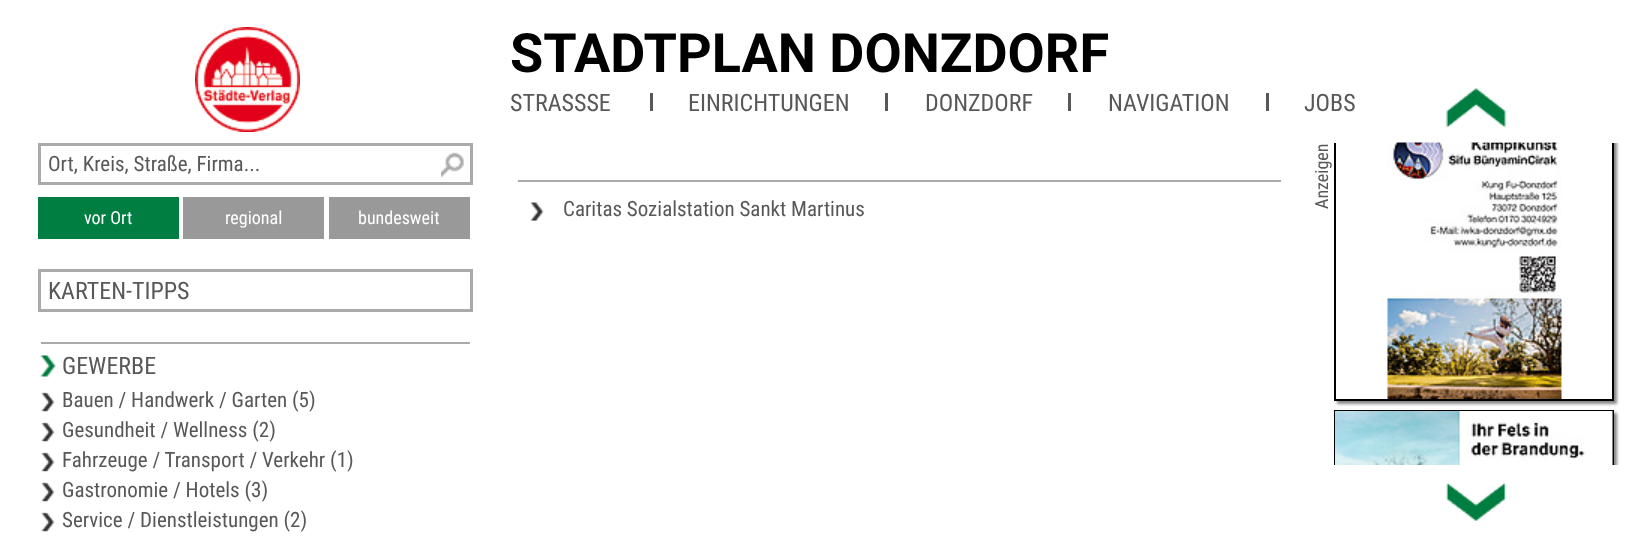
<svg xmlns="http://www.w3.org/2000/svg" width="1625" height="536">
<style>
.a{font:bold 54px Roboto;fill:#000}
.b{font:24px Roboto Condensed;fill:#58585a}
.c{font:21px Roboto Condensed;fill:#58585a}
.d{font:18px Roboto Condensed;fill:#fff}
.e{font:18px Roboto Condensed;fill:#58585a}
</style>
<defs>
<clipPath id="clip1"><path d="M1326 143h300v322H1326z"/></clipPath>
<clipPath id="clip2"><path d="M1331 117h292v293h-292zm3 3h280v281h-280z" clip-rule="evenodd"/></clipPath>
<clipPath id="clip3"><path d="M1326 143h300v322H1326z"/></clipPath>
</defs>
<rect width="100%" height="100%" fill="#fff"/>
<image href="1.png" x="195" y="27" width="105" height="105"/>
<path fill="#58585a" d="M650 93h3v18H650z"/>
<path fill="#58585a" d="M885 93h3v18H885z"/>
<path fill="#58585a" d="M1068 93h3v18H1068z"/>
<path fill="#58585a" d="M1266 93h3v18H1266z"/>
<image href="2.png" x="441" y="152" width="23" height="26"/>
<path fill="none" stroke="#aaa" stroke-width="3" d="M39.5 144.5h432v39H39.5z"/>
<path fill="#007d40" d="M38 197h141v42H38z"/>
<path fill="#999" d="M183 197h141v42H183z"/>
<path fill="#999" d="M329 197h141v42H329z"/>
<path fill="none" stroke="#aaa" stroke-width="3" d="M39.5 270.5h432v40H39.5z"/>
<image href="3.png" x="40" y="355" width="16" height="22"/>
<path fill="#aaa" d="M41 342h429v2H41z"/>
<image href="4.png" x="41" y="392" width="14" height="20"/>
<image href="4.png" x="41" y="422" width="14" height="20"/>
<image href="4.png" x="41" y="452" width="14" height="20"/>
<image href="4.png" x="41" y="482" width="14" height="20"/>
<image href="4.png" x="41" y="512" width="14" height="20"/>
<image href="5.png" x="530" y="202" width="14" height="19"/>
<path fill="#aaa" d="M518 180h763v2H518z"/>
<image href="6.png" x="1445" y="88" width="62" height="40"/>
<g clip-path="url(#clip1)">
<g clip-path="url(#clip2)">
<path fill="#888" filter="blur(1.5px)" d="M1337 123h280v281H1337z"/>
</g>
</g>
<g clip-path="url(#clip3)">
<path fill="none" stroke="#000" stroke-width="2" d="M1335 121h278v279H1335z"/>
</g>
<image href="7.png" x="1387" y="142" width="175" height="257"/>
<image href="9.png" x="1445" y="482" width="62" height="39"/>
<g clip-path="url(#clip1)">
<path fill="#888" filter="blur(1.5px)" d="M1337 413h280v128H1337z"/>
</g>
<g clip-path="url(#clip3)">
<path fill="none" stroke="#000" stroke-width="2" d="M1335 411h278v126H1335z"/>
</g>
<image href="8.png" x="1335" y="411" width="278" height="54"/>
<text class="a" x="510" y="72">STADTPLAN DONZDORF</text>
<text class="b" x="510" y="111">STRASSSE</text>
<text class="b" x="688" y="111">EINRICHTUNGEN</text>
<text class="b" x="925" y="111">DONZDORF</text>
<text class="b" x="1108" y="111">NAVIGATION</text>
<text class="b" x="1304" y="111">JOBS</text>
<text class="c" x="48" y="171">Ort, Kreis, Straße, Firma...</text>
<text class="d" x="84" y="224">vor Ort</text>
<text class="d" x="225" y="224">regional</text>
<text class="d" x="358" y="224">bundesweit</text>
<text class="b" x="48" y="299">KARTEN-TIPPS</text>
<text class="b" x="62" y="374">GEWERBE</text>
<text class="c" x="62" y="407">Bauen / Handwerk / Garten (5)</text>
<text class="c" x="62" y="437">Gesundheit / Wellness (2)</text>
<text class="c" x="62" y="467">Fahrzeuge / Transport / Verkehr (1)</text>
<text class="c" x="62" y="497">Gastronomie / Hotels (3)</text>
<text class="c" x="62" y="527">Service / Dienstleistungen (2)</text>
<text class="c" x="563" y="216">Caritas Sozialstation Sankt Martinus</text>
<text class="e" x="1328" y="209" transform="rotate(-90 1328 209)">Anzeigen</text>
</svg>
